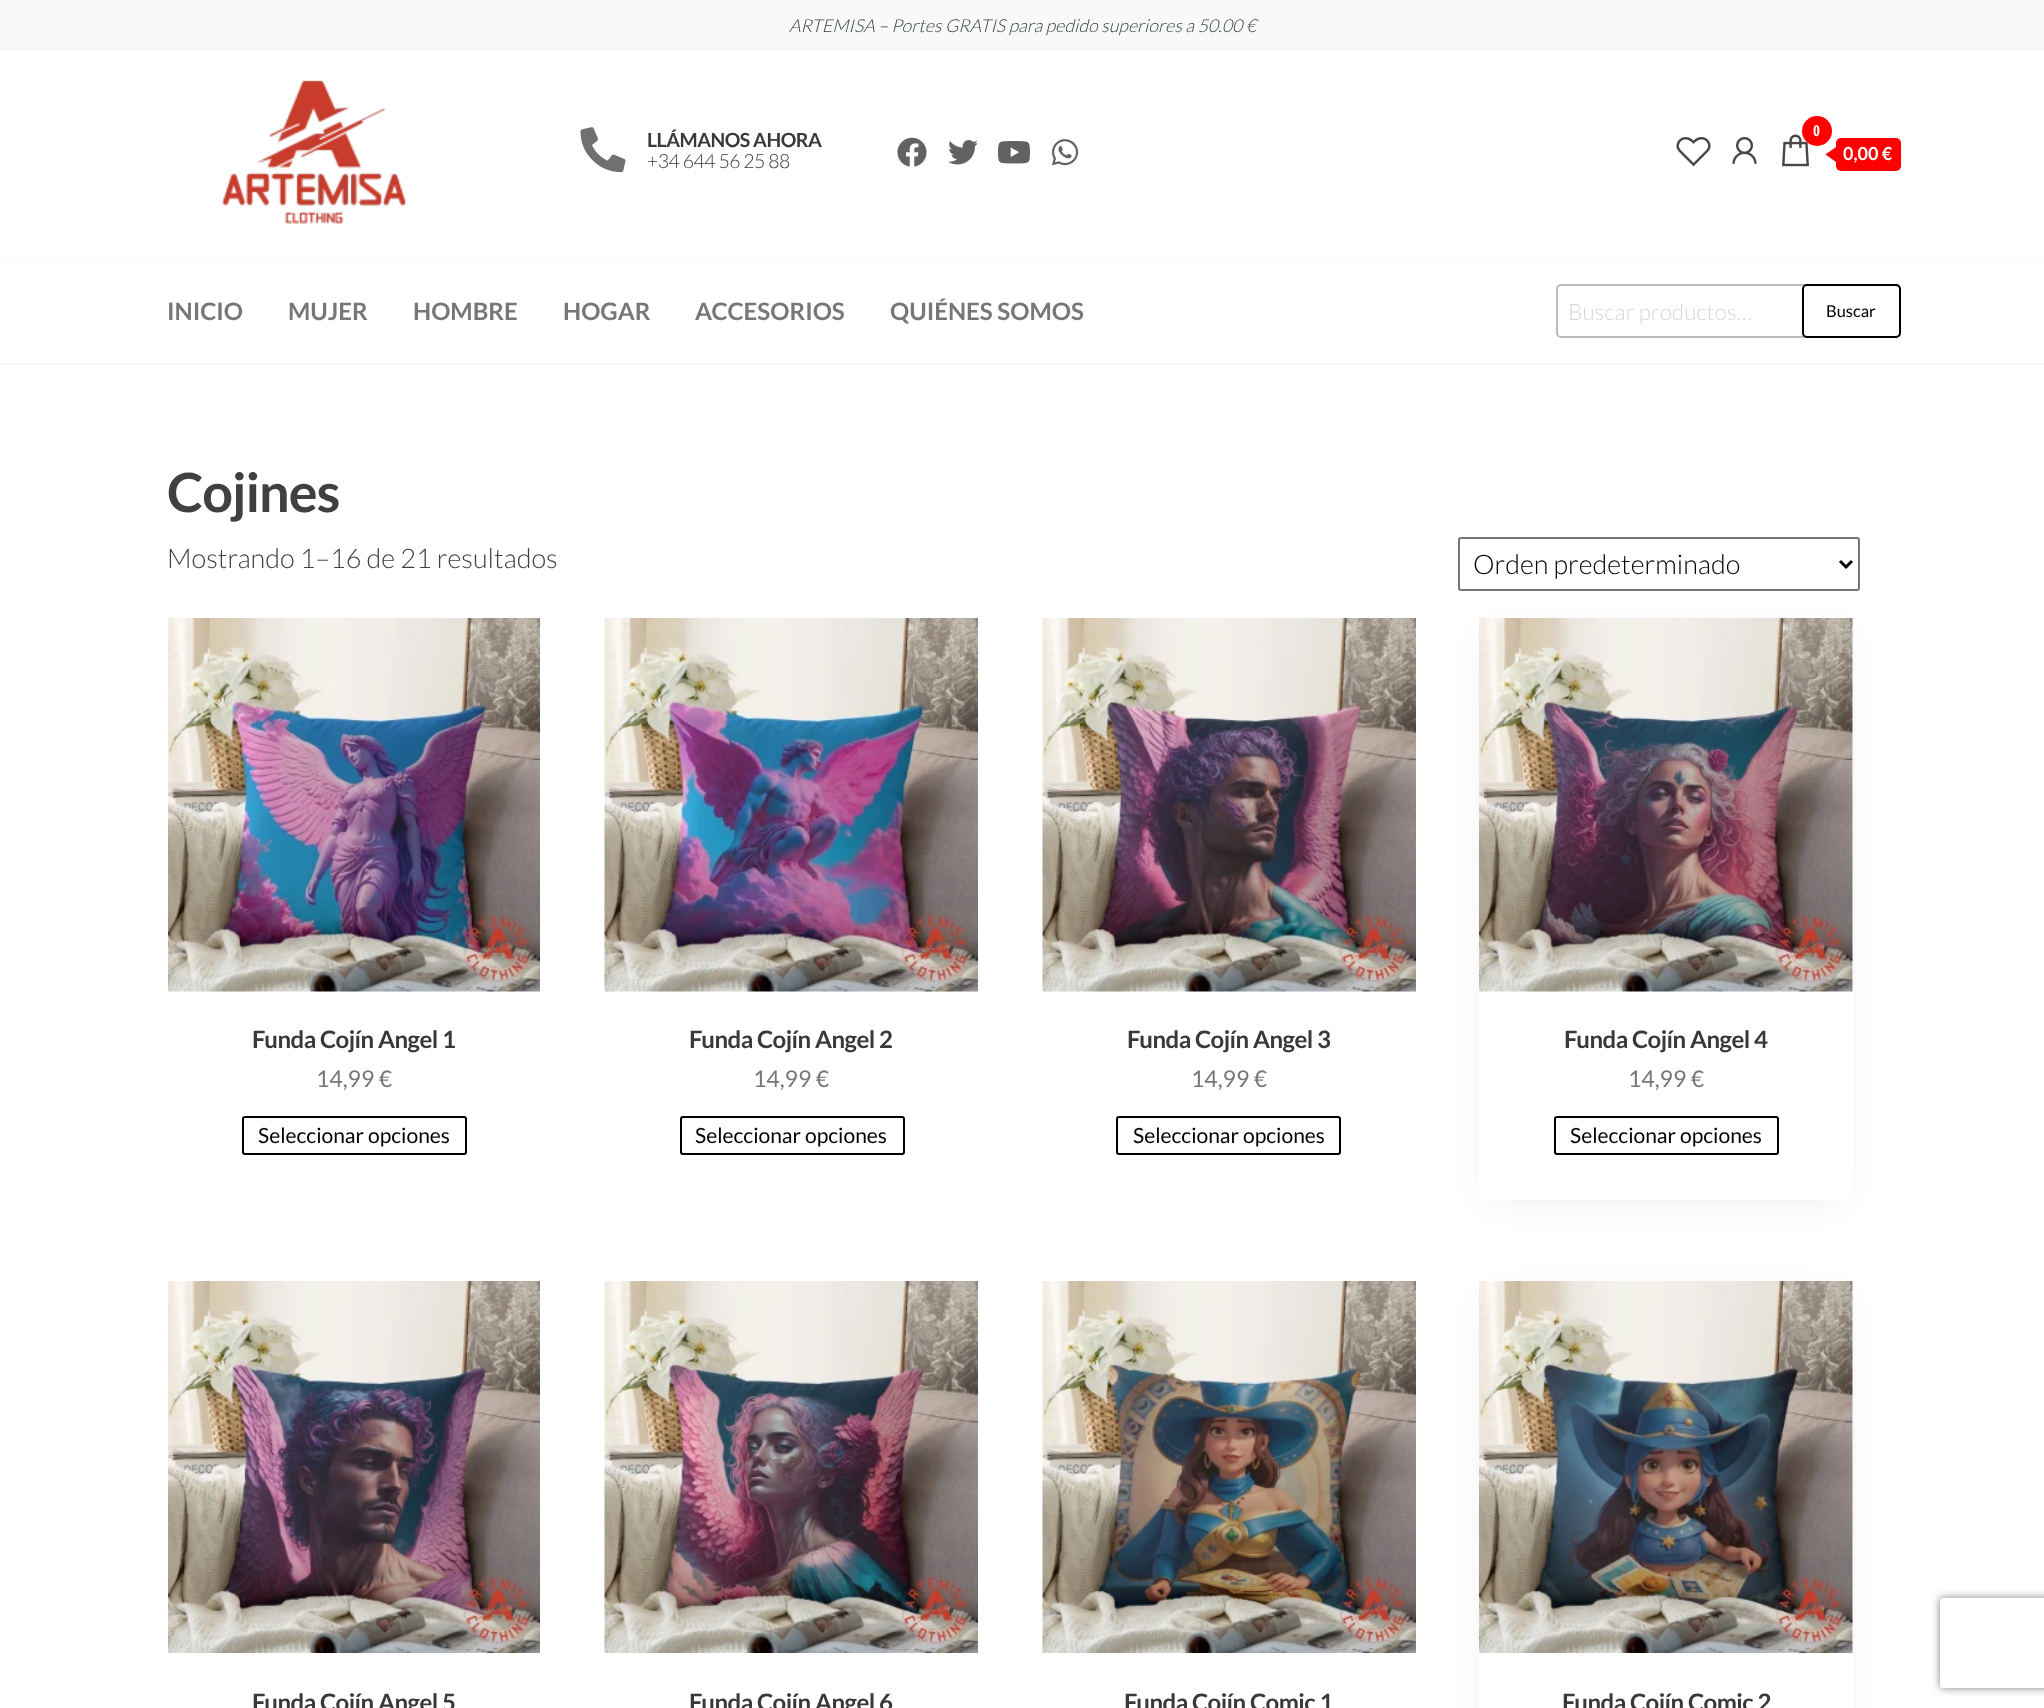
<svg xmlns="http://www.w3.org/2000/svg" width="2044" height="1708">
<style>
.a{font:italic 300 17.85px Lato;fill:#334142}
.b{font:bold 19.5px Lato;letter-spacing:-0.5px;fill:#39393a}
.c{font:300 19.5px Lato;letter-spacing:-0.5px;fill:#39393a}
.d{font:bold 15px Open Sans Condensed;fill:#fff}
.e{font:bold 18px Lato;fill:#fff}
.f{font:bold 24px Lato;fill:#777}
.g{font:300 22.5px Lato;fill:#d7d7d7}
.h{font:16.5px Lato;fill:#000}
.i{font:bold 54px Lato;letter-spacing:-1px;fill:#404040}
.j{font:300 27px Lato;fill:#404040}
.k{font:300 27px Lato;fill:#000}
.l{font:bold 24px Lato;letter-spacing:-0.5px;fill:#39393a}
.m{font:23px Lato;fill:#777}
.n{font:21px Lato;fill:#000}
</style>
<defs>
<clipPath id="clip1"><path d="M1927 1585h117v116h-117zm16 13h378c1.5 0 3 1.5 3 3v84c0 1.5-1.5 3-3 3h-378c-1.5 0-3-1.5-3-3v-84c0-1.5 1.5-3 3-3z" clip-rule="evenodd"/></clipPath>
</defs>
<rect width="100%" height="100%" fill="#fff"/>
<path fill="#f9f9f9" d="M0 0h2044v48H0z"/>
<path fill="#f6f6f6" d="M0 48h2044v2H0z"/>
<path fill="#f6f6f6" d="M0 257h2044v1H0z"/>
<image href="1.png" x="221" y="80" width="186" height="144"/>
<image href="2.png" x="580" y="127" width="46" height="46"/>
<image href="3.png" x="897" y="137" width="30" height="30"/>
<image href="4.png" x="948" y="140" width="30" height="25"/>
<image href="5.png" x="998" y="141" width="32" height="23"/>
<image href="6.png" x="1052" y="139" width="27" height="27"/>
<image href="7.png" x="1676" y="137" width="35" height="30"/>
<image href="8.png" x="1732" y="137" width="25" height="27"/>
<image href="9.png" x="1782" y="134" width="27" height="33"/>
<circle fill="#f00" cx="1817" cy="131" r="15"/>
<rect fill="#f00" x="1836" y="138" width="65" height="33" rx="5"/>
<path fill="#f00" d="M1836 147v15l-10.5-7.5z"/>
<path fill="#f6f6f6" d="M0 363h2044v2H0z"/>
<rect fill="none" stroke="#bbb" stroke-width="2" x="1557" y="285" width="343" height="52" rx="4"/>
<rect fill="none" stroke="#000" stroke-width="2" x="1803" y="285" width="97" height="52" rx="4"/>
<rect fill="none" stroke="#767676" stroke-width="2" x="1459" y="538" width="400" height="52" rx="2"/>
<path fill="none" stroke="#000" stroke-width="3" d="M1840 561l6 6l6-6"/>
<image href="10.png" x="168" y="618" width="372" height="374"/>
<rect fill="none" stroke="#000" stroke-width="2" x="243" y="1117" width="223" height="37" rx="2"/>
<image href="11.png" x="604" y="618" width="374" height="374"/>
<rect fill="none" stroke="#000" stroke-width="2" x="681" y="1117" width="223" height="37" rx="2"/>
<image href="12.png" x="1042" y="618" width="374" height="374"/>
<rect fill="none" stroke="#000" stroke-width="2" x="1117" y="1117" width="223" height="37" rx="2"/>
<path fill="#0000001a" filter="blur(19px)" d="M1494 641h344v552H1494z"/>
<rect fill="#fff" x="1479" y="618" width="374" height="582" rx="8"/>
<image href="13.png" x="1479" y="618" width="374" height="374"/>
<rect fill="none" stroke="#000" stroke-width="2" x="1555" y="1117" width="223" height="37" rx="2"/>
<image href="14.png" x="168" y="1281" width="372" height="372"/>
<image href="15.png" x="604" y="1281" width="374" height="372"/>
<image href="16.png" x="1042" y="1281" width="374" height="372"/>
<path fill="#0000001a" filter="blur(19px)" d="M1494 1304h344v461H1494z"/>
<rect fill="#fff" x="1479" y="1281" width="374" height="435" rx="8"/>
<image href="17.png" x="1479" y="1281" width="374" height="372"/>
<g clip-path="url(#clip1)">
<rect fill="#808080" filter="blur(4px)" x="1940" y="1598" width="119" height="90" rx="3"/>
</g>
<text class="a" x="789" y="32">ARTEMISA – Portes GRATIS para pedido superiores a 50.00 €</text>
<text class="b" x="647" y="147">LLÁMANOS AHORA</text>
<text class="c" x="647" y="168">+34 644 56 25 88</text>
<text class="d" x="1813" y="136">0</text>
<text class="e" x="1843" y="160">0,00 €</text>
<text class="f" x="167" y="320">INICIO</text>
<text class="f" x="288" y="320">MUJER</text>
<text class="f" x="413" y="320">HOMBRE</text>
<text class="f" x="563" y="320">HOGAR</text>
<text class="f" x="695" y="320">ACCESORIOS</text>
<text class="f" x="890" y="320">QUIÉNES SOMOS</text>
<text class="g" x="1568" y="320">Buscar productos…</text>
<text class="h" x="1826" y="317">Buscar</text>
<text class="i" x="167" y="512">Cojines</text>
<text class="j" x="167" y="568">Mostrando 1–16 de 21 resultados</text>
<text class="k" x="1473" y="574">Orden predeterminado</text>
<text class="l" x="252" y="1048">Funda Cojín Angel 1</text>
<text class="m" x="316" y="1087">14,99 €</text>
<text class="n" x="258" y="1143">Seleccionar opciones</text>
<text class="l" x="689" y="1048">Funda Cojín Angel 2</text>
<text class="m" x="753" y="1087">14,99 €</text>
<text class="n" x="695" y="1143">Seleccionar opciones</text>
<text class="l" x="1127" y="1048">Funda Cojín Angel 3</text>
<text class="m" x="1191" y="1087">14,99 €</text>
<text class="n" x="1133" y="1143">Seleccionar opciones</text>
<text class="l" x="1564" y="1048">Funda Cojín Angel 4</text>
<text class="m" x="1628" y="1087">14,99 €</text>
<text class="n" x="1570" y="1143">Seleccionar opciones</text>
<text class="l" x="252" y="1711">Funda Cojín Angel 5</text>
<text class="l" x="689" y="1711">Funda Cojín Angel 6</text>
<text class="l" x="1124" y="1711">Funda Cojín Comic 1</text>
<text class="l" x="1562" y="1711">Funda Cojín Comic 2</text>
</svg>
